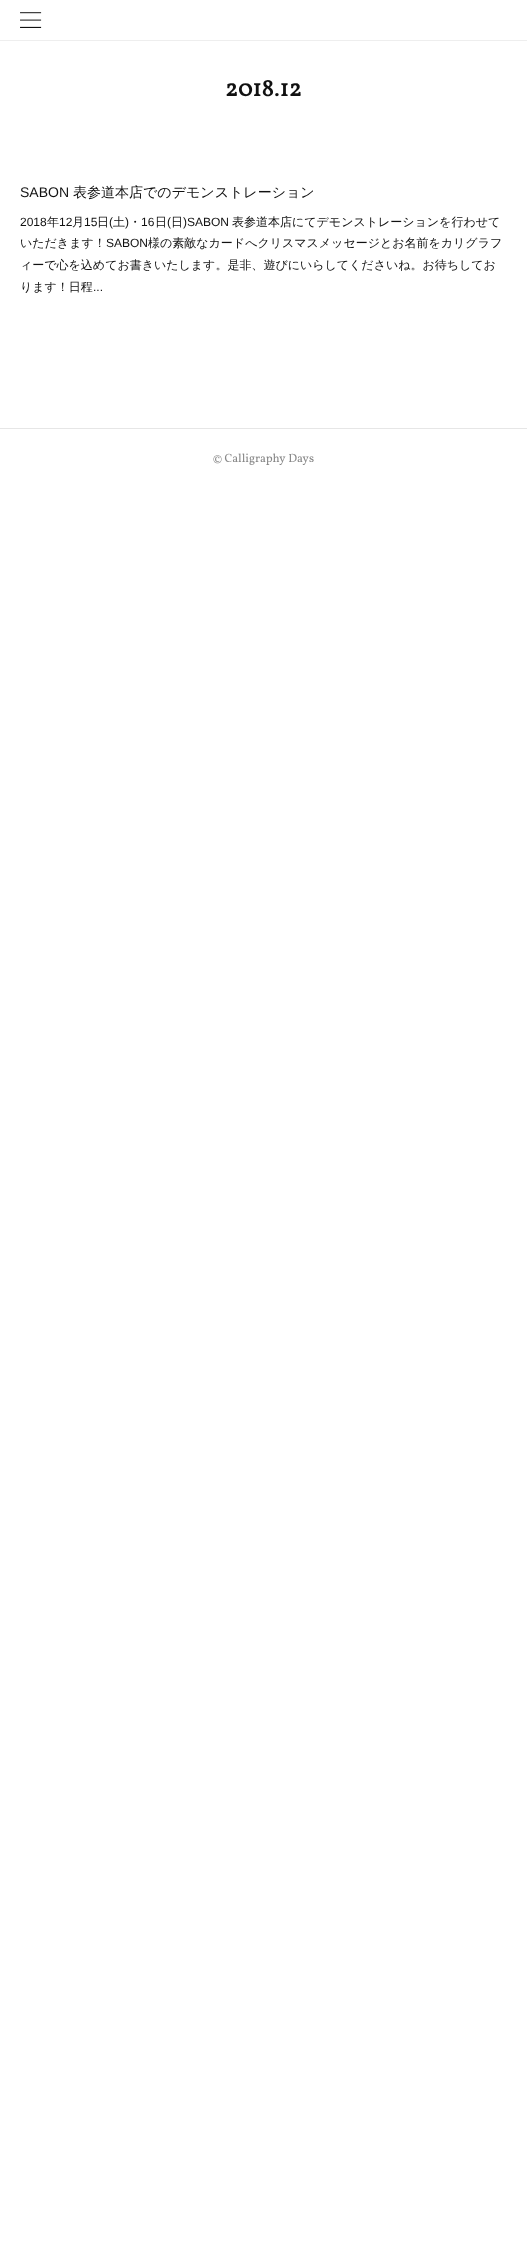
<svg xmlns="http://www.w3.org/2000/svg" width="527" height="2255">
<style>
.a{font:bold 24px Vollkorn;fill:#111}
.b{font:14px Liberation Sans;fill:#111}
.c{font:500 14px WenQuanYi Zen Hei;fill:#111}
.d{font:12px Liberation Sans;fill:#111}
.e{font:500 12px WenQuanYi Zen Hei;fill:#111}
.f{font:12px Vollkorn;fill:#888}
</style>
<rect width="100%" height="100%" fill="#fff"/>
<path fill="#eee" d="M0 40h527v1H0z"/>
<image href="1.png" x="20" y="12" width="22" height="16"/>
<path fill="#e6e6e6" d="M0 428h527v1H0z"/>
<text class="a" x="225" y="96">2018.12</text>
<text class="b" x="20" y="197">SABON</text>
<text class="c" x="73" y="197">表参道本店でのデモンストレーション</text>
<text class="d" x="20" y="226">2018</text>
<text class="e" x="47" y="226">年</text>
<text class="d" x="59" y="226">12</text>
<text class="e" x="72" y="226">月</text>
<text class="d" x="84" y="226">15</text>
<text class="e" x="97" y="226">日</text>
<text class="d" x="109" y="226">(</text>
<text class="e" x="113" y="226">土</text>
<text class="d" x="125" y="226">)</text>
<text class="e" x="129" y="226">・</text>
<text class="d" x="141" y="226">16</text>
<text class="e" x="155" y="226">日</text>
<text class="d" x="167" y="226">(</text>
<text class="e" x="171" y="226">日</text>
<text class="d" x="183" y="226">)SABON</text>
<text class="e" x="232" y="226">表参道本店にてデモンストレーションを行わせて</text>
<text class="e" x="20" y="247">いただきます！</text>
<text class="d" x="106" y="247">SABON</text>
<text class="e" x="148" y="247">様の素敵なカードへクリスマスメッセージとお名前をカリグラフ</text>
<text class="e" x="20" y="269">ィーで心を込めてお書きいたします。是非、遊びにいらしてくださいね。お待ちしてお</text>
<text class="e" x="20" y="291">ります！日程</text>
<text class="d" x="93" y="291">...</text>
<text class="f" x="213" y="462">©︎ Calligraphy Days</text>
</svg>
